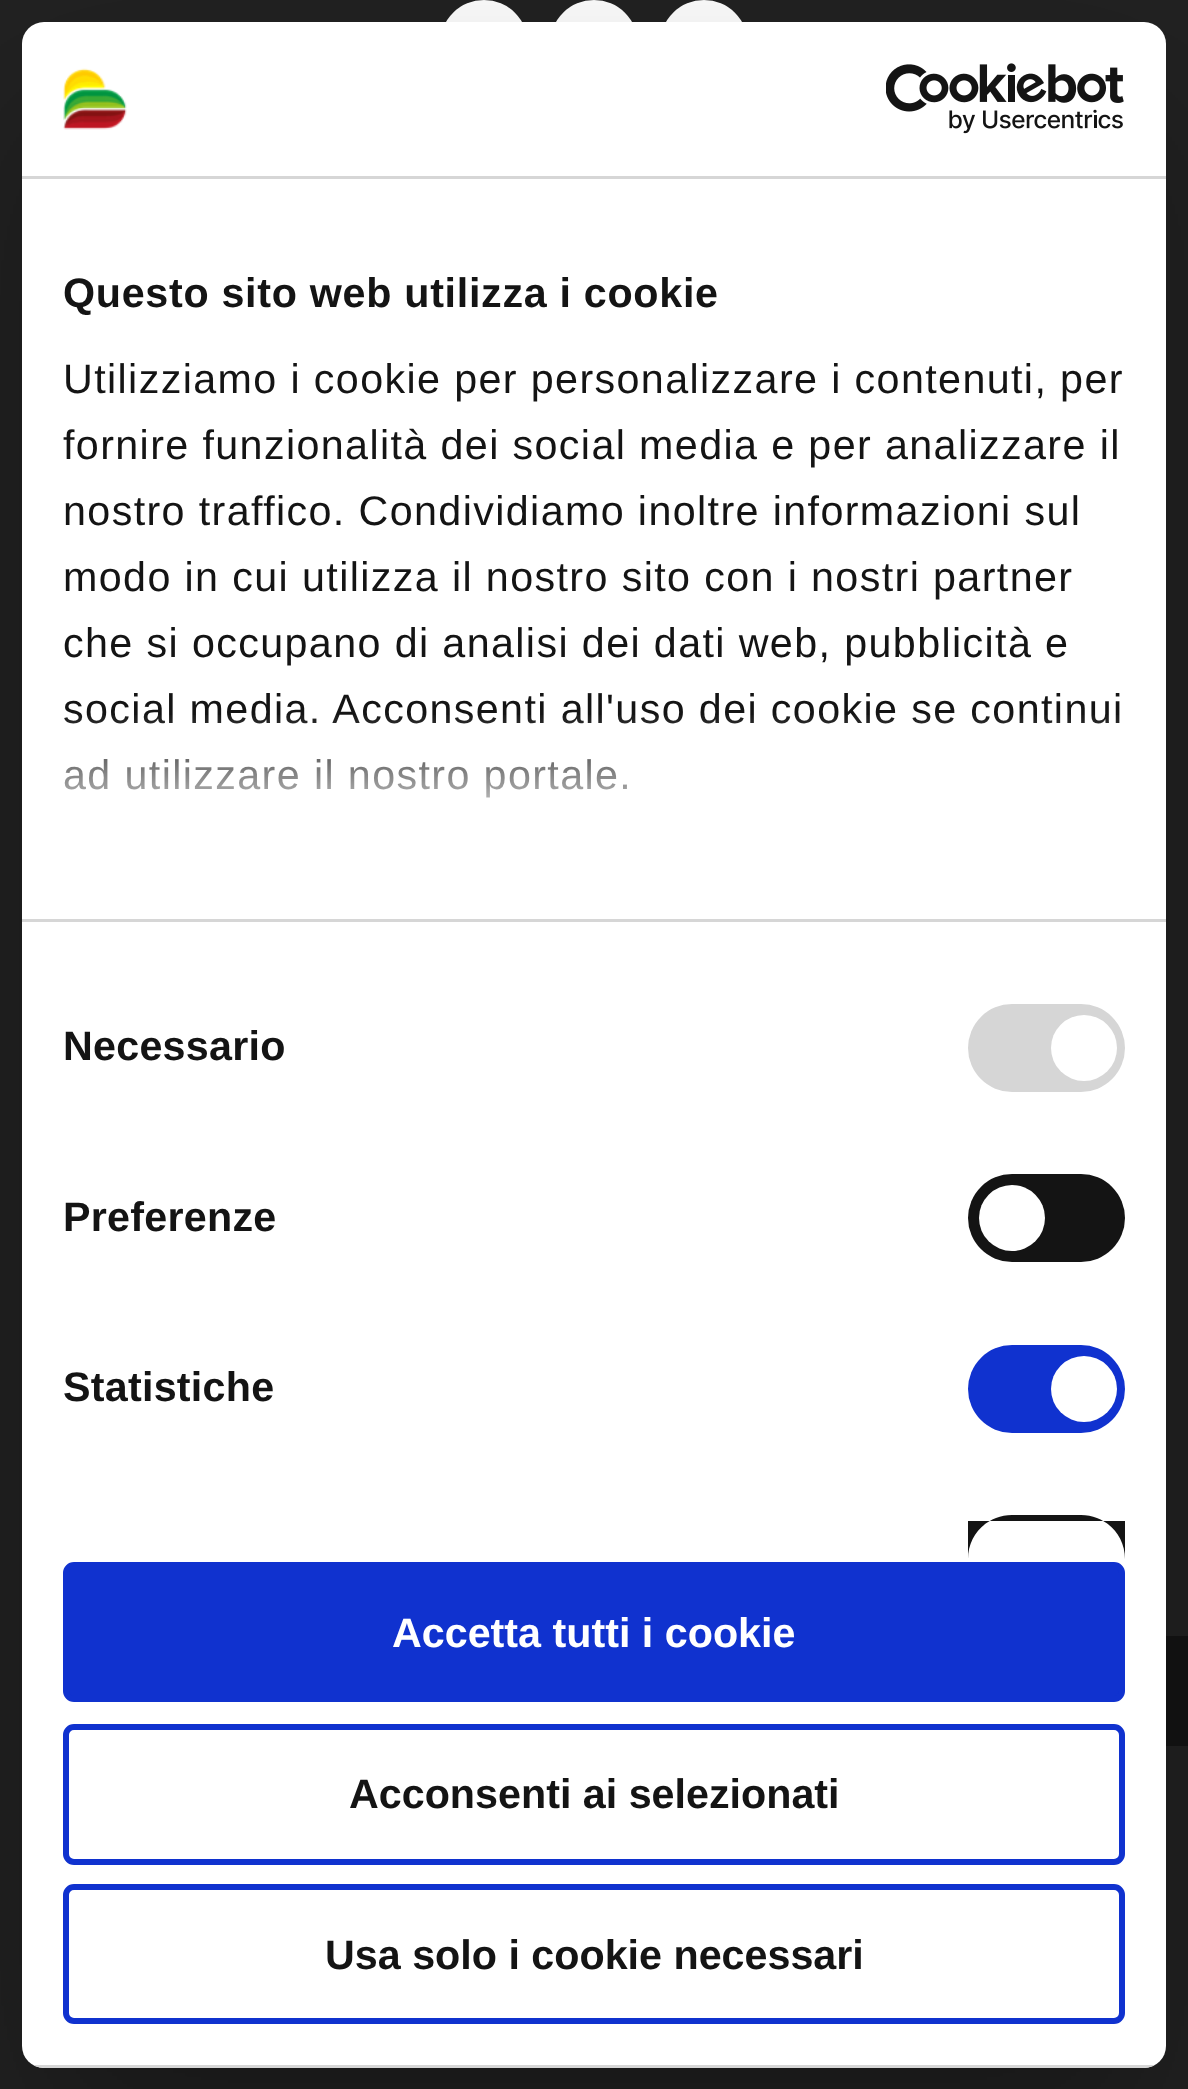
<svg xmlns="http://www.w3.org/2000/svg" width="1188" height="2089">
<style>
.a{font:bold 41.25px Liberation Sans;letter-spacing:0.7px;fill:#141414}
.b{font:41.25px Liberation Sans;letter-spacing:1.38px;fill:#141414}
.c{font:bold 41.25px Liberation Sans;letter-spacing:0.25px;fill:#141414}
.d{font:bold 41.25px Liberation Sans;fill:#fff}
.e{font:bold 41.25px Liberation Sans;fill:#141414}
</style>
<defs>
<clipPath id="clip1"><rect x="22" y="22" width="1144" height="2046" rx="22"/></clipPath>
<linearGradient id="g1" gradientUnits="userSpaceOnUse" x1="576" y1="919" x2="576" y2="712"><stop offset="0" stop-color="#fff"/><stop offset="0.5" stop-color="#fff" stop-opacity="0.8"/><stop offset="1" stop-color="#fff" stop-opacity="0"/></linearGradient>
</defs>
<rect width="100%" height="100%" fill="#222"/>
<circle fill="#fff" cx="484" cy="44" r="44"/>
<circle fill="#fff" cx="594" cy="44" r="44"/>
<circle fill="#fff" cx="704" cy="44" r="44"/>
<path fill="#141414" d="M1166 1636h22v110H1166z"/>
<rect fill="#0000004d" filter="blur(93.5px)" x="22" y="110" width="1144" height="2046" rx="22"/>
<rect fill="#fff" x="22" y="22" width="1144" height="2046" rx="22"/>
<path fill="#d6d6d6" d="M22 176h1144v3H22z"/>
<image href="1.png" x="63" y="68" width="64" height="62"/>
<image href="2.png" x="886" y="63" width="238" height="71"/>
<path fill="#d6d6d6" d="M22 919h1144v3H22z"/>
<rect fill="#d6d6d6" x="968" y="1004" width="157" height="88" rx="44"/>
<circle fill="#fff" cx="1084" cy="1048" r="33"/>
<rect fill="#141414" x="968" y="1174" width="157" height="88" rx="44"/>
<circle fill="#fff" cx="1012" cy="1218" r="33"/>
<rect fill="#1032cf" x="968" y="1345" width="157" height="88" rx="44"/>
<circle fill="#fff" cx="1084" cy="1389" r="33"/>
<path fill="#141414" d="M1012 1515h69c24.5 0 44 19.5 44 44v-38h-157v38c0-24.5 19.5-44 44-44z"/>
<g clip-path="url(#clip1)">
<path fill="#d6d6d6" d="M33 2065h1122v3H33z"/>
</g>
<rect fill="#1032cf" stroke="#1032cf" stroke-width="6" x="66" y="1565" width="1056" height="134" rx="8"/>
<rect fill="none" stroke="#1032cf" stroke-width="6" x="66" y="1727" width="1056" height="135" rx="8"/>
<rect fill="none" stroke="#1032cf" stroke-width="6" x="66" y="1887" width="1056" height="134" rx="8"/>
<text class="a" x="63" y="307">Questo sito web utilizza i cookie</text>
<text class="b" x="63" y="393">Utilizziamo i cookie per personalizzare i contenuti, per</text>
<text class="b" x="63" y="459">fornire funzionalità dei social media e per analizzare il</text>
<text class="b" x="63" y="525">nostro traffico. Condividiamo inoltre informazioni sul</text>
<text class="b" x="63" y="591">modo in cui utilizza il nostro sito con i nostri partner</text>
<text class="b" x="63" y="657">che si occupano di analisi dei dati web, pubblicità e</text>
<text class="b" x="63" y="723">social media. Acconsenti all'uso dei cookie se continui</text>
<text class="b" x="63" y="789">ad utilizzare il nostro portale.</text>
<path fill="url(#g1)" d="M64 715h1056v83H64z"/>
<text class="c" x="63" y="1060">Necessario</text>
<text class="c" x="63" y="1231">Preferenze</text>
<text class="c" x="63" y="1401">Statistiche</text>
<text class="d" x="392" y="1647">Accetta tutti i cookie</text>
<text class="e" x="349" y="1808">Acconsenti ai selezionati</text>
<text class="e" x="325" y="1969">Usa solo i cookie necessari</text>
</svg>
